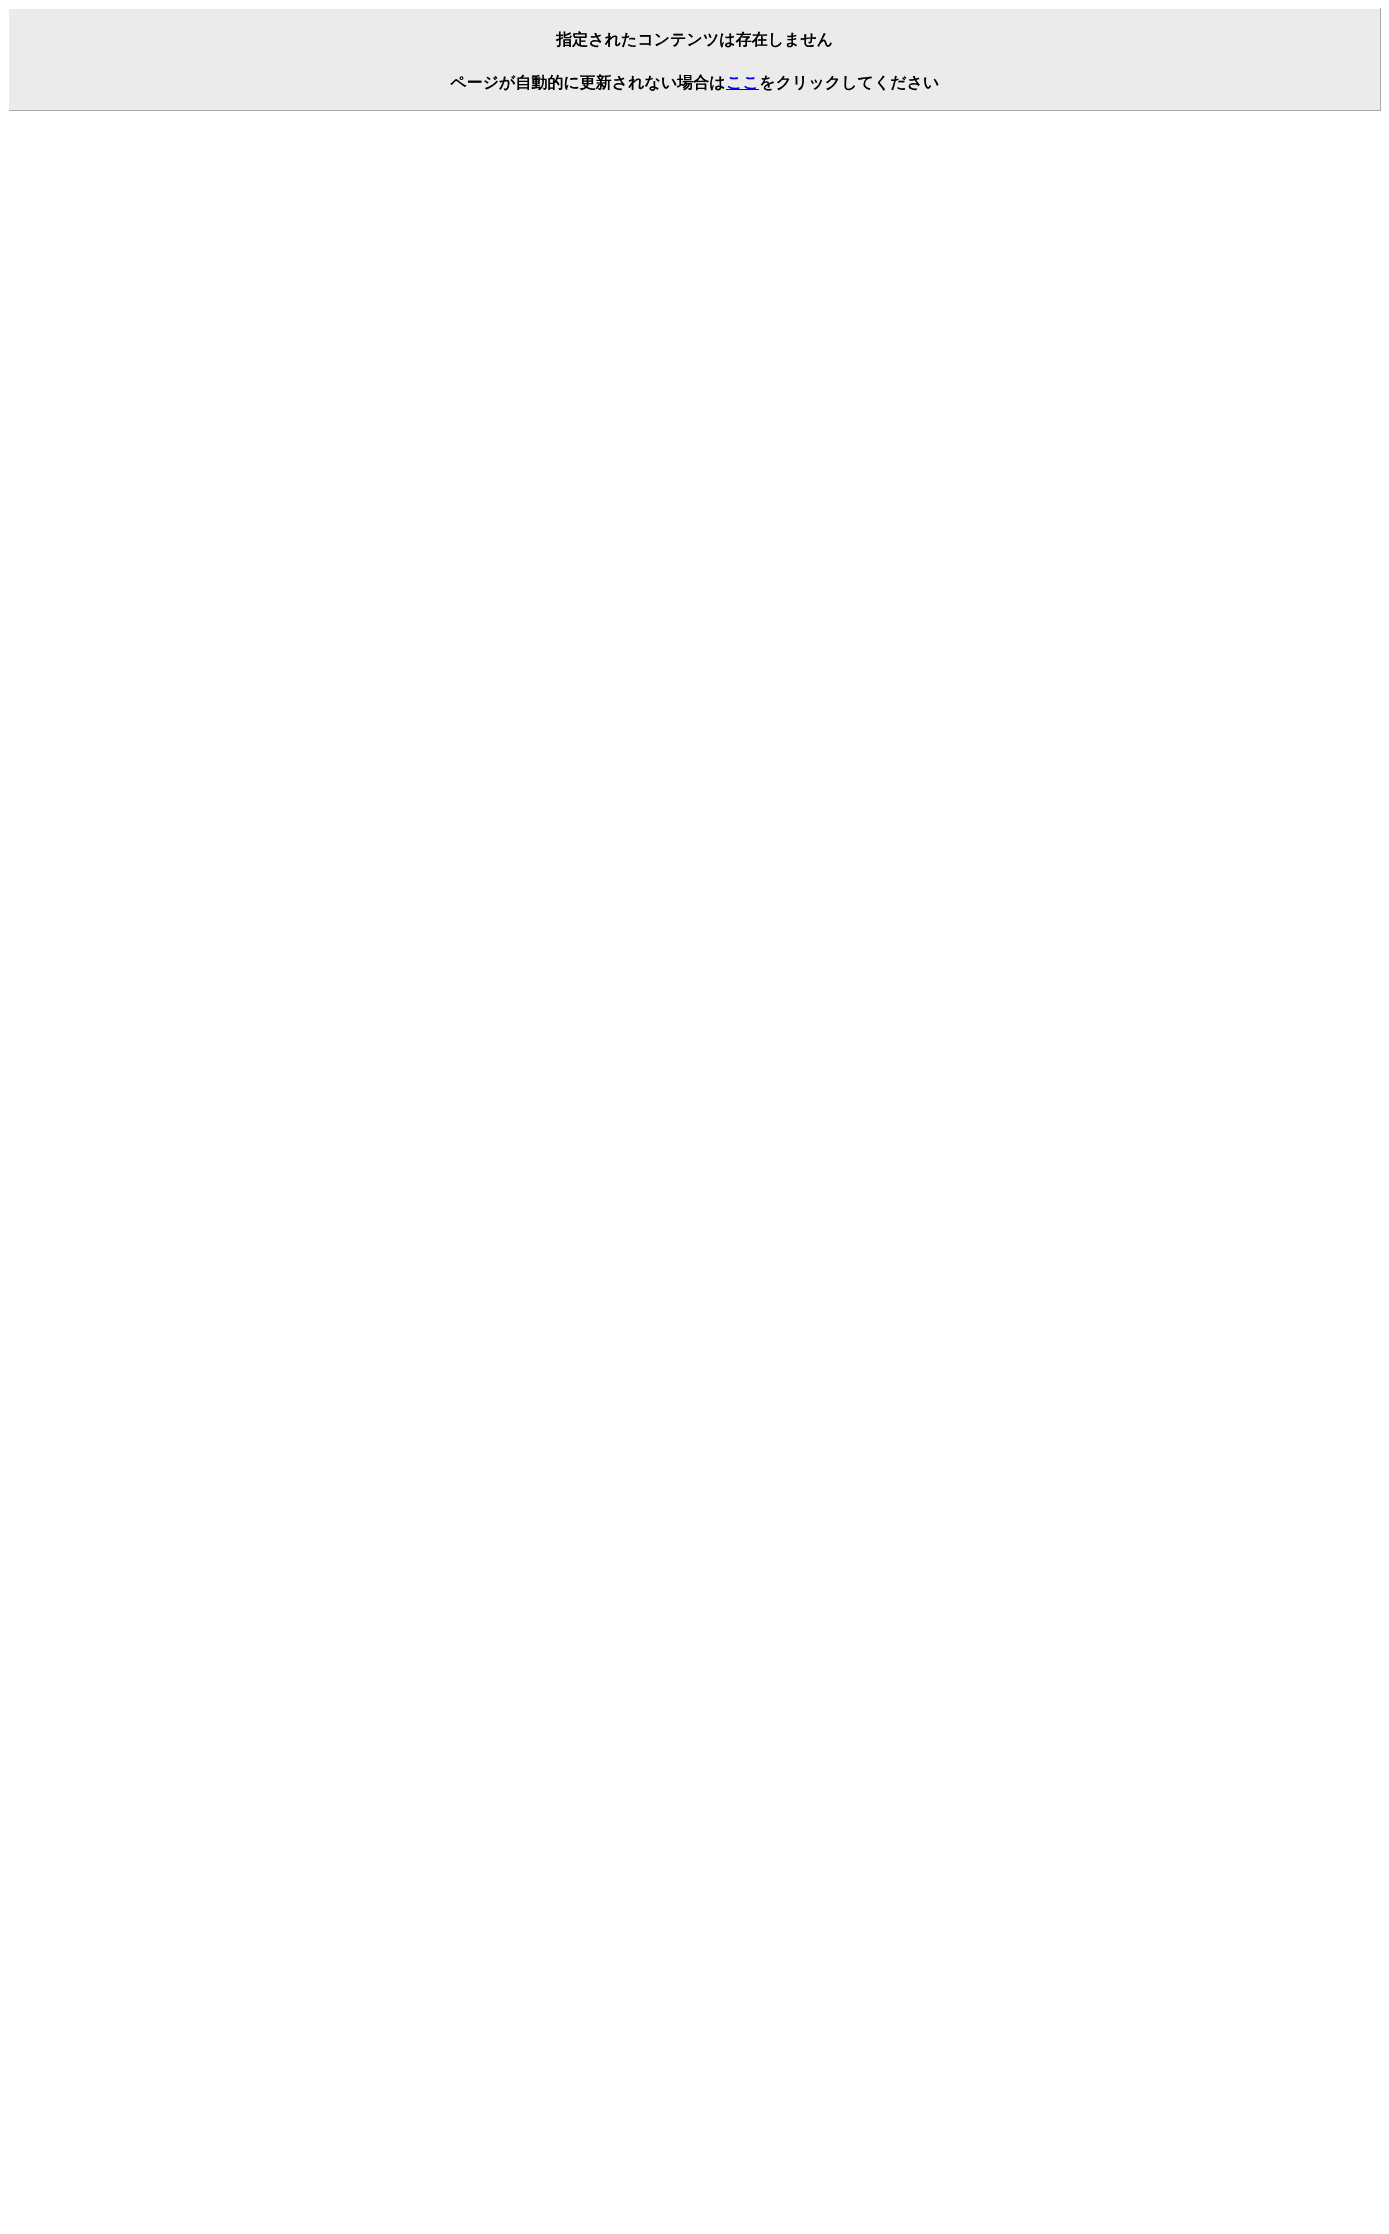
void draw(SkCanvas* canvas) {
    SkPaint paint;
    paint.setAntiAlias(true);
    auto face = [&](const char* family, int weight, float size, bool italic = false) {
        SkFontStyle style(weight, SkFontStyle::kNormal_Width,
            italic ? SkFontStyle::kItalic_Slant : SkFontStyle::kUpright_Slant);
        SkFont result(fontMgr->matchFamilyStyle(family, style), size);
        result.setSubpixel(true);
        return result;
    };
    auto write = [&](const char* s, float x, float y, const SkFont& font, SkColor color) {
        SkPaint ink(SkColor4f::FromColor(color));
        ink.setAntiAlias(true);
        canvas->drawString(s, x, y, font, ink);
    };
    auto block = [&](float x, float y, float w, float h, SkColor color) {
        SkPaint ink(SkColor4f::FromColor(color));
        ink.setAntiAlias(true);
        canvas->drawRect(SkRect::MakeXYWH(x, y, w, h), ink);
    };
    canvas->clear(SK_ColorWHITE);
    block(9, 9, 1371, 101, SkColorSetRGB(235, 235, 235));
    block(1380, 8, 1, 103, SkColorSetRGB(170, 170, 170));
    block(8, 110, 1373, 1, SkColorSetRGB(170, 170, 170));
    block(8, 110, 1, 1, SK_ColorWHITE);
    auto kFont1 = face("WenQuanYi Zen Hei", 700, 16);
    write("指定されたコンテンツは存在しません", 556, 45, kFont1, SK_ColorBLACK);
    write("ページが自動的に更新されない場合は", 450, 88, kFont1, SK_ColorBLACK);
    block(726, 89, 33, 1, SkColorSetRGB(0, 0, 238));
    write("ここ", 726, 88, kFont1, SkColorSetRGB(0, 0, 238));
    write("をクリックしてください", 759, 88, kFont1, SK_ColorBLACK);
}
